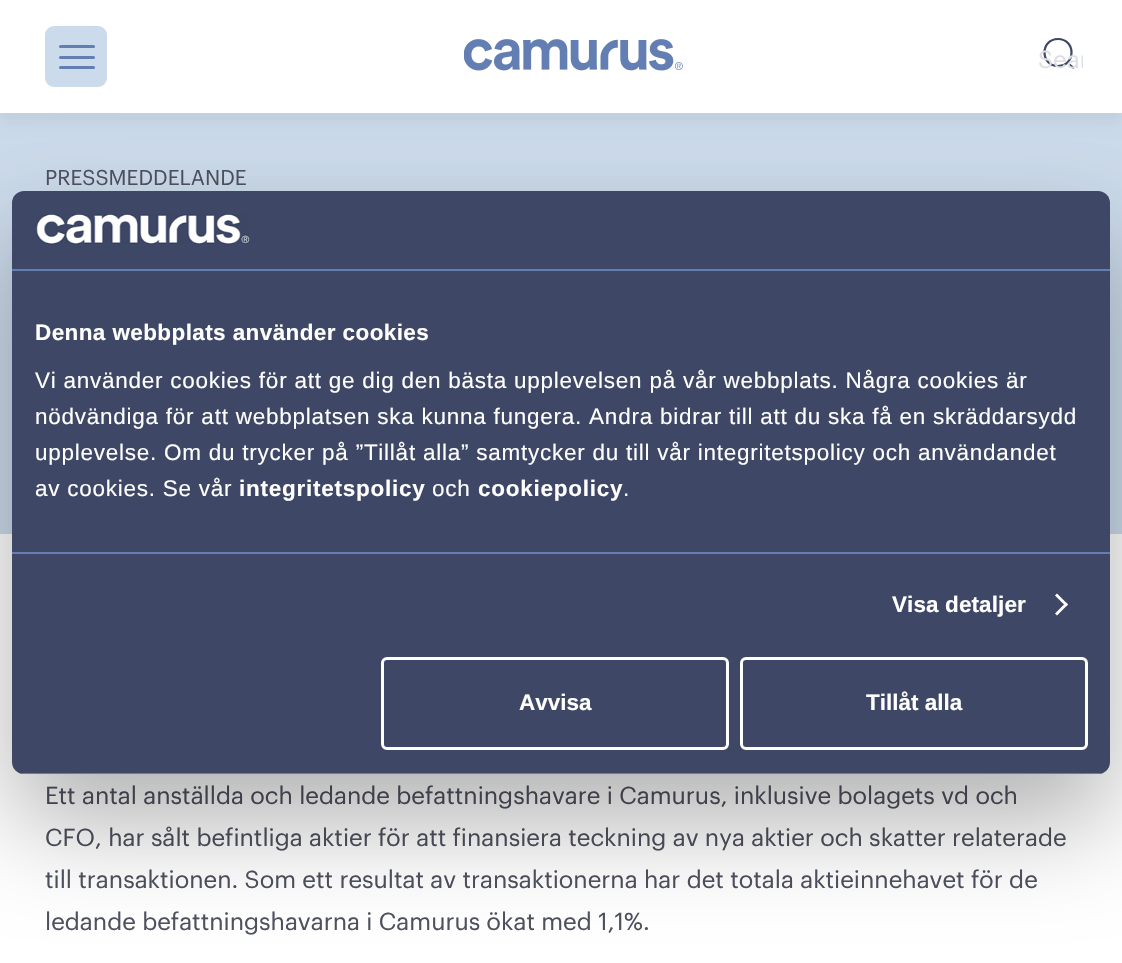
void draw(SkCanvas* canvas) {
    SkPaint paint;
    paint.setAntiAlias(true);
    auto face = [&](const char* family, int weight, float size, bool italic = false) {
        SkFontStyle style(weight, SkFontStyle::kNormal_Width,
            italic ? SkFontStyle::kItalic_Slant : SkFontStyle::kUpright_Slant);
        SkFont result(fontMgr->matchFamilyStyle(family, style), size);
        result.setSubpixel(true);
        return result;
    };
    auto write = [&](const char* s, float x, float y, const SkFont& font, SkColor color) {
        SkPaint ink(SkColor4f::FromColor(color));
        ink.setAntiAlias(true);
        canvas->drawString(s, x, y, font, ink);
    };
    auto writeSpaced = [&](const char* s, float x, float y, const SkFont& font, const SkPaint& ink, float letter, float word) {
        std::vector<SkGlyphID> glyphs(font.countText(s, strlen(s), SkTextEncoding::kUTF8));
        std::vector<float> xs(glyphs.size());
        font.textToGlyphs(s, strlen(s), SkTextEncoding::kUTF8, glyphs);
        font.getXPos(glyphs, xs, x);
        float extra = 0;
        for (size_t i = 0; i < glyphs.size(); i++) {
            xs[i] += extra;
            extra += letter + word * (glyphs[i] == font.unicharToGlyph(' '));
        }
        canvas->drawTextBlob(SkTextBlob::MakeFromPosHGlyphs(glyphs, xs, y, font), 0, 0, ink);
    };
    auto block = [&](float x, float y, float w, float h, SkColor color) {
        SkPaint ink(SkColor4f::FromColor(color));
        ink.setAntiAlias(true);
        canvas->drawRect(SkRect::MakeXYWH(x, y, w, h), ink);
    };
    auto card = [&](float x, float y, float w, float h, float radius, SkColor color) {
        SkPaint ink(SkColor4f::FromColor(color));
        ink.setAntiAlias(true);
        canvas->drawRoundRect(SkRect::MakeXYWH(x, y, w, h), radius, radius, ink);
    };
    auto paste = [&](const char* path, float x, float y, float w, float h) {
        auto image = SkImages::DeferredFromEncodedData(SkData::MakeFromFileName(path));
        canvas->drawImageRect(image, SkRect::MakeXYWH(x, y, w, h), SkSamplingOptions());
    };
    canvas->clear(SK_ColorWHITE);
    block(0, 113, 1122, 421, SkColorSetRGB(204, 219, 235));
    canvas->save();
    canvas->clipPath(SkPathBuilder(SkPathFillType::kEvenOdd).moveTo(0, 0).lineTo(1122, 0).lineTo(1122, 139).lineTo(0, 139).close().moveTo(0, 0).lineTo(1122, 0).lineTo(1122, 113).lineTo(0, 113).close().detach(), true);
    paint.setColor(SkColorSetARGB(13, 0, 0, 0));
    paint.setMaskFilter(SkMaskFilter::MakeBlur(kNormal_SkBlurStyle, 5));
    canvas->drawRect(SkRect::MakeXYWH(0, 11, 1122, 112), paint);
    paint.setMaskFilter(nullptr);
    canvas->restore();
    card(45, 26, 62, 61, 9, SkColorSetRGB(204, 219, 235));
    card(59, 45, 36, 3, 1.5f, SkColorSetRGB(98, 126, 179));
    card(59, 66, 36, 3, 1.5f, SkColorSetRGB(98, 126, 179));
    card(59, 56, 36, 3, 1.5f, SkColorSetRGB(98, 126, 179));
    paste("pic1.png", 464, 39, 219, 32);
    paint.setStyle(SkPaint::kStroke_Style);
    paint.setStrokeWidth(2.2f);
    paint.setStrokeCap(SkPaint::kRound_Cap);
    paint.setStrokeJoin(SkPaint::kRound_Join);
    paint.setColor(SkColorSetRGB(62, 71, 101));
    canvas->drawPath(SkPathBuilder().moveTo(1058, 66).cubicTo(1076, 66, 1076, 39, 1058, 39).cubicTo(1040, 39, 1040, 66, 1058, 66).close().moveTo(1073, 67.5f).lineTo(1070, 65).detach(), paint);
    canvas->save();
    canvas->clipRect(SkRect::MakeXYWH(1038, 44, 45, 28));
    auto kFont1 = face("Graphik", 400, 24);
    write("Sear", 1038, 68, kFont1, SkColorSetRGB(221, 223, 228));
    canvas->restore();
    auto kFont2 = face("Graphik", 400, 21);
    write("PRESSMEDDELANDE", 45, 185, kFont2, SkColorSetRGB(78, 81, 94));
    write("Ett antal anställda och ledande befattningshavare i Camurus, inklusive bolagets vd och", 45, 804, kFont1, SkColorSetRGB(78, 81, 94));
    write("CFO, har sålt befintliga aktier för att finansiera teckning av nya aktier och skatter relaterade", 45, 846, kFont1, SkColorSetRGB(78, 81, 94));
    write("till transaktionen. Som ett resultat av transaktionerna har det totala aktieinnehavet för de", 45, 888, kFont1, SkColorSetRGB(78, 81, 94));
    write("ledande befattningshavarna i Camurus ökat med 1,1%.", 45, 930, kFont1, SkColorSetRGB(78, 81, 94));
    paint.setStyle(SkPaint::kFill_Style);
    paint.setColor(SkColorSetARGB(77, 0, 0, 0));
    paint.setMaskFilter(SkMaskFilter::MakeBlur(kNormal_SkBlurStyle, 51));
    canvas->drawRoundRect(SkRect::MakeXYWH(12, 239, 1098, 583), 12, 12, paint);
    paint.setMaskFilter(nullptr);
    card(12, 191, 1098, 583, 12, SkColorSetRGB(62, 71, 101));
    block(12, 269, 1098, 2, SkColorSetRGB(98, 126, 179));
    paste("pic2.png", 36, 214, 214, 31);
    block(12, 552, 1098, 2, SkColorSetRGB(98, 126, 179));
    auto kFont3 = face("Liberation Sans", 700, 22.5f);
    paint.setColor(SK_ColorWHITE);
    writeSpaced("Denna webbplats använder cookies", 35, 340, kFont3, paint, 0.4f, 0);
    auto kFont4 = face("Liberation Sans", 400, 22.5f);
    writeSpaced("Vi använder cookies för att ge dig den bästa upplevelsen på vår webbplats. Några cookies är", 35, 388, kFont4, paint, 0.75f, 0);
    writeSpaced("nödvändiga för att webbplatsen ska kunna fungera. Andra bidrar till att du ska få en skräddarsydd", 35, 424, kFont4, paint, 0.75f, 0);
    writeSpaced("upplevelse. Om du trycker på ”Tillåt alla” samtycker du till vår integritetspolicy och användandet", 35, 460, kFont4, paint, 0.75f, 0);
    writeSpaced("av cookies. Se vår", 35, 496, kFont4, paint, 0.75f, 0);
    writeSpaced("integritetspolicy", 239, 496, kFont3, paint, 0.75f, 0);
    writeSpaced("och", 432, 496, kFont4, paint, 0.75f, 0);
    writeSpaced("cookiepolicy", 478, 496, kFont3, paint, 0.75f, 0);
    writeSpaced(".", 623, 496, kFont4, paint, 0.75f, 0);
    writeSpaced("Visa detaljer", 892, 612, kFont3, paint, 0.1f, 0);
    canvas->drawPath(SkPathBuilder().moveTo(1057, 593.5f).lineTo(1068, 604.5f).lineTo(1066, 606.5f).lineTo(1055, 595.5f).close().detach(), paint);
    canvas->drawPath(SkPathBuilder().moveTo(1066, 602.5f).lineTo(1068, 604.5f).lineTo(1057, 615.5f).lineTo(1055, 613.5f).close().detach(), paint);
    canvas->save();
    canvas->clipPath(SkPathBuilder().moveTo(24, 191).lineTo(1098, 191).cubicTo(1104.5f, 191, 1110, 196.5f, 1110, 203).lineTo(1110, 762).cubicTo(1110, 768.5f, 1104.5f, 774, 1098, 774).lineTo(24, 774).cubicTo(17.5f, 774, 12, 768.5f, 12, 762).lineTo(12, 203).cubicTo(12, 196.5f, 17.5f, 191, 24, 191).close().detach(), true);
    block(12, 773, 1098, 1, SkColorSetRGB(98, 126, 179));
    canvas->restore();
    paint.setStyle(SkPaint::kStroke_Style);
    paint.setStrokeWidth(3);
    paint.setStrokeCap(SkPaint::kButt_Cap);
    paint.setStrokeJoin(SkPaint::kMiter_Join);
    canvas->drawRoundRect(SkRect::MakeXYWH(382.5f, 658.5f, 345, 90), 4.5f, 4.5f, paint);
    write("Avvisa", 519, 710, kFont3, SK_ColorWHITE);
    canvas->drawRoundRect(SkRect::MakeXYWH(741.5f, 658.5f, 345, 90), 4.5f, 4.5f, paint);
    write("Tillåt alla", 866, 710, kFont3, SK_ColorWHITE);
}
